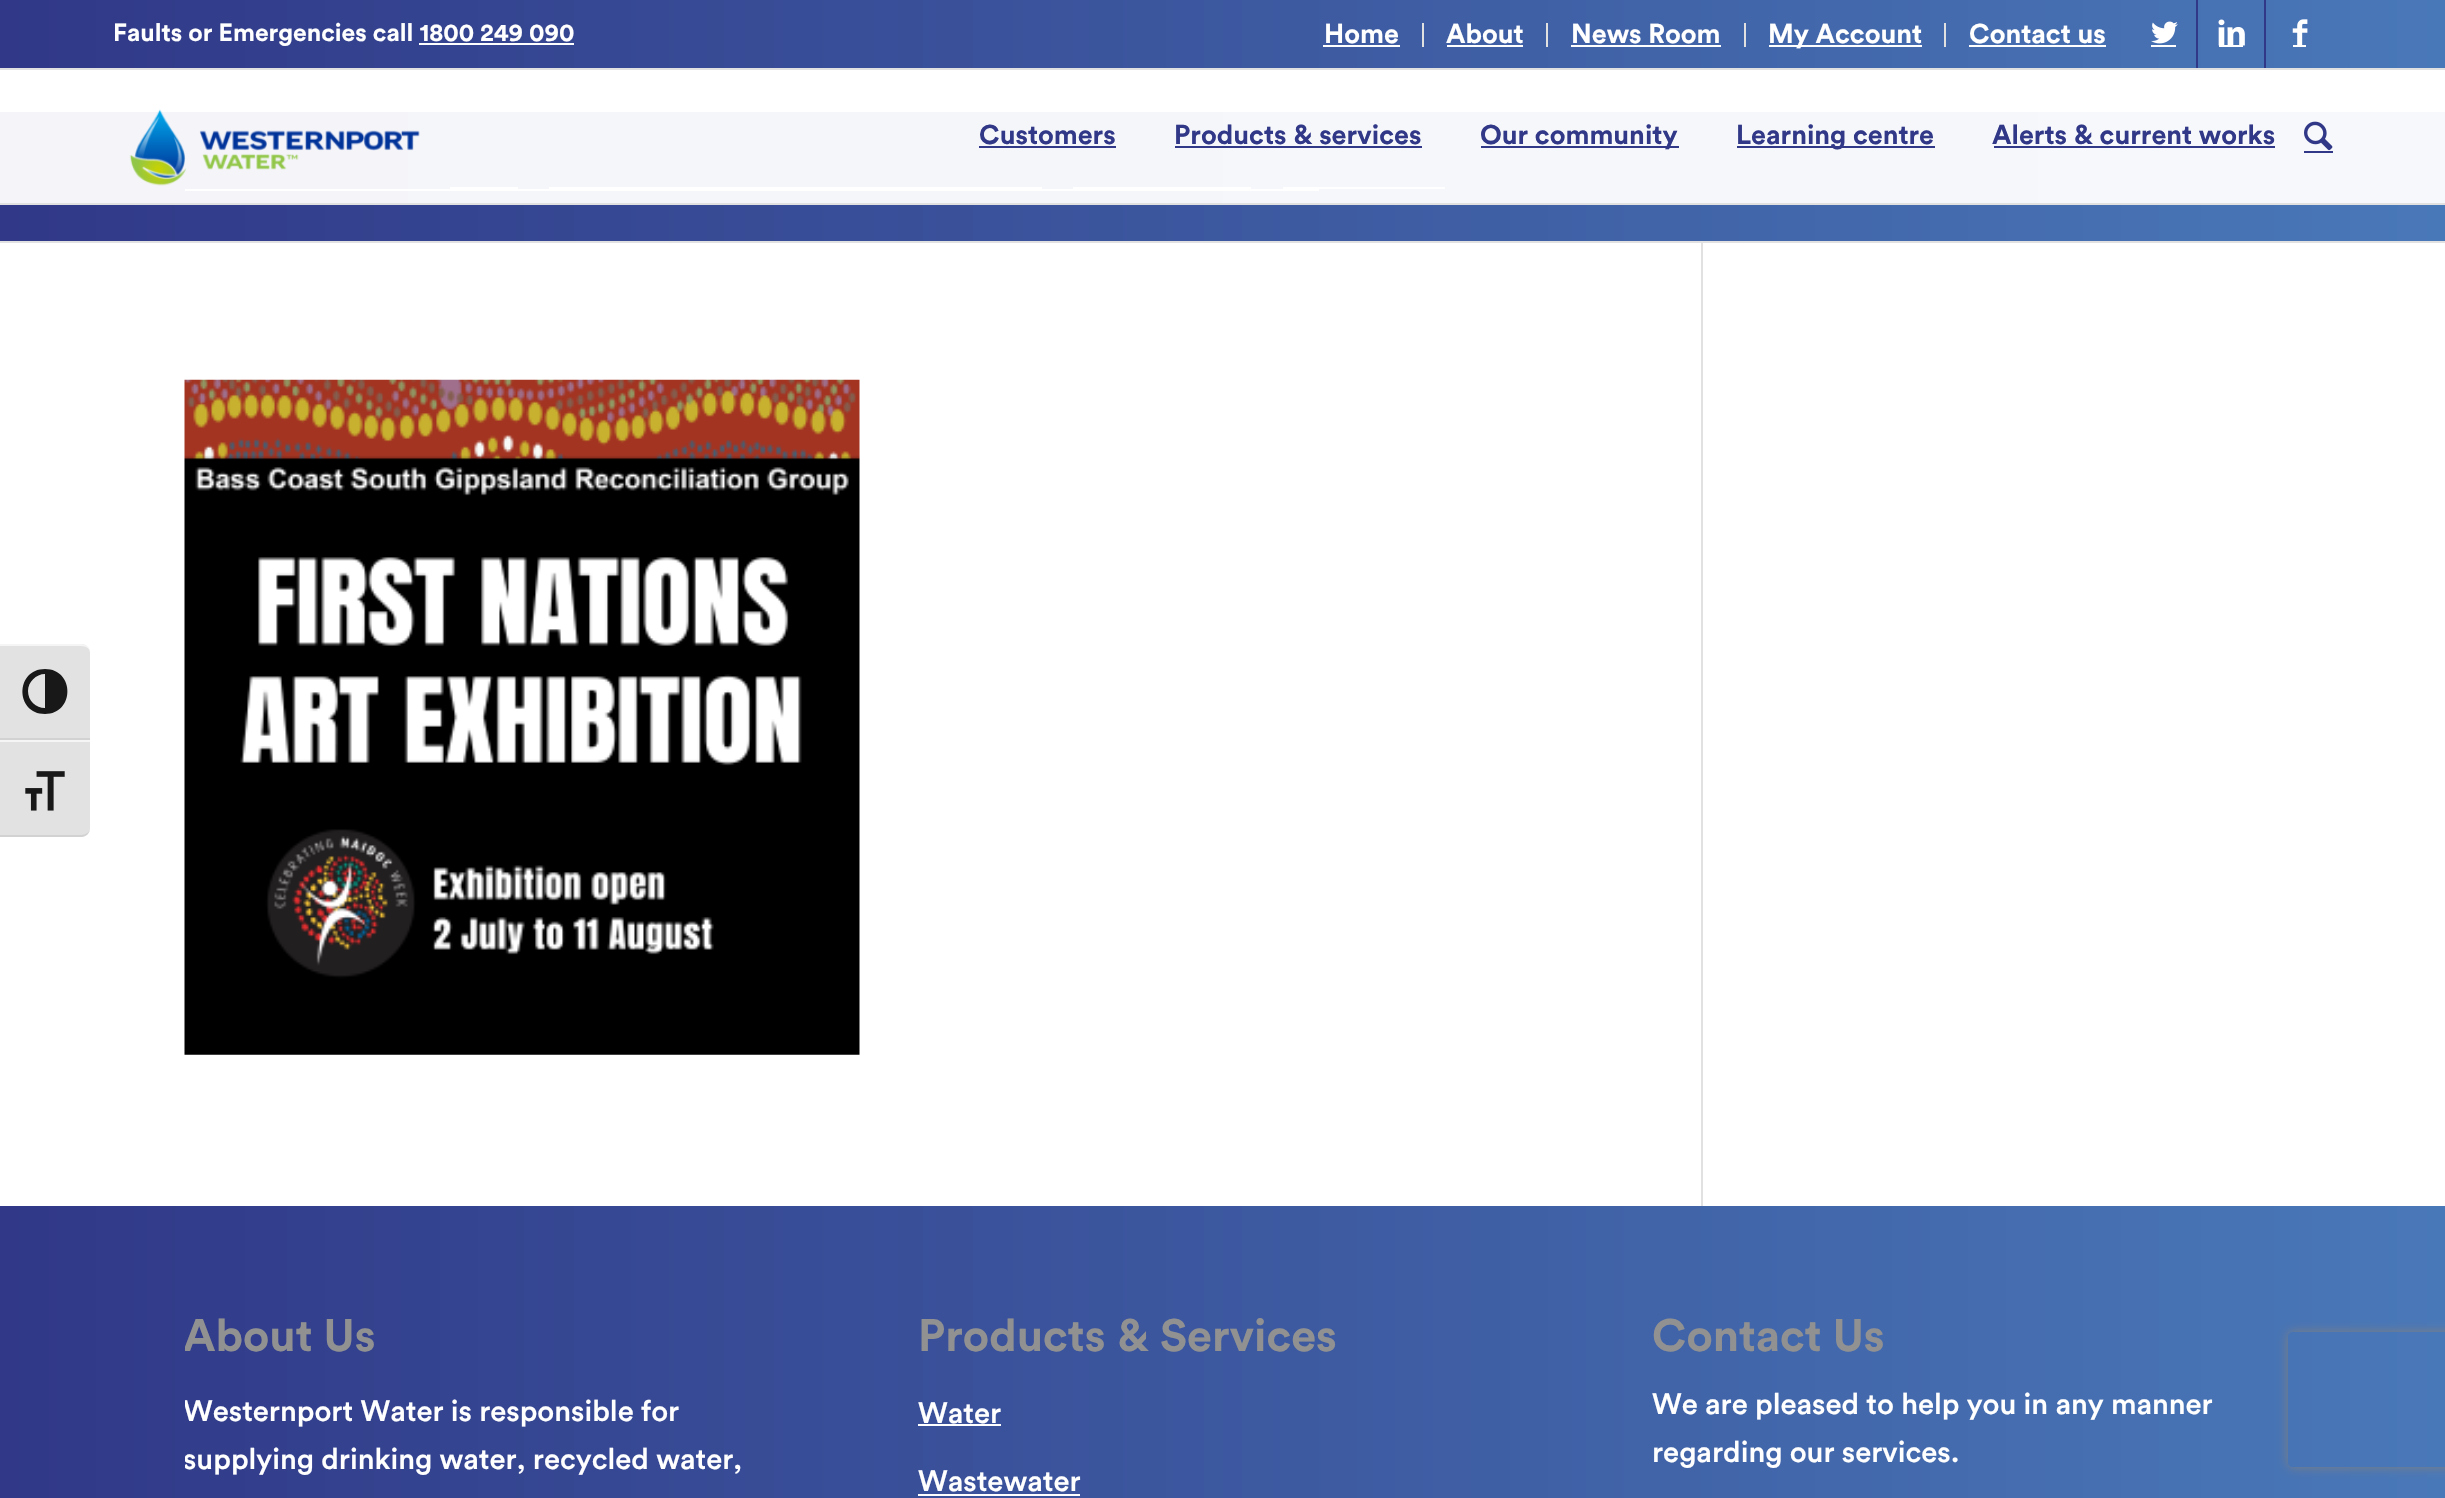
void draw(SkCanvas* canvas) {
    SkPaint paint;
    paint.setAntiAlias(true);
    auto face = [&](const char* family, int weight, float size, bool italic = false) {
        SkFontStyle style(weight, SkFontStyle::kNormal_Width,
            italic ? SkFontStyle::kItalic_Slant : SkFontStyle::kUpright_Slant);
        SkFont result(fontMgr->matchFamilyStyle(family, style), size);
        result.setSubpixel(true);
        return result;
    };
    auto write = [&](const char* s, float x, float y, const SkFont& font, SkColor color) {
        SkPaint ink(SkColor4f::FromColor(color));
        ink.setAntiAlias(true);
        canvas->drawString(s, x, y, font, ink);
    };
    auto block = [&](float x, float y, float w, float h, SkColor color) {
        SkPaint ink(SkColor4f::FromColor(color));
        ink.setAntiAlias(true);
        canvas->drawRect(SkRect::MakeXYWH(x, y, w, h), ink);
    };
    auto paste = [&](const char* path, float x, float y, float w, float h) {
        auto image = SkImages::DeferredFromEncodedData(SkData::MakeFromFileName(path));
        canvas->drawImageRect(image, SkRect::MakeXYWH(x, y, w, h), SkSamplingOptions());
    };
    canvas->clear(SK_ColorWHITE);
    paint.setColor(SkColorSetRGB(226, 226, 226));
    canvas->drawPath(SkPathBuilder().moveTo(0, 644).lineTo(81, 644).cubicTo(86, 644, 90, 648, 90, 653).lineTo(90, 740).lineTo(0, 740).close().detach(), paint);
    paint.setColor(SkColorSetRGB(245, 245, 245));
    canvas->drawPath(SkPathBuilder().moveTo(0, 646).lineTo(81, 646).cubicTo(86, 646, 90, 649, 90, 652).cubicTo(90, 648, 86, 644, 81, 644).lineTo(0, 644).close().detach(), paint);
    block(0, 738, 90, 2, SkColorSetRGB(210, 210, 210));
    paint.setColor(SkColorSetRGB(24, 24, 24));
    canvas->drawPath(SkPathBuilder().moveTo(45, 669).cubicTo(15, 669, 15, 714, 45, 714).cubicTo(75, 714, 75, 669, 45, 669).close().moveTo(28, 691).cubicTo(28, 682, 36, 674, 45, 674).lineTo(45, 708).cubicTo(36, 708, 28, 701, 28, 691).close().detach(), paint);
    paint.setColor(SkColorSetRGB(226, 226, 226));
    canvas->drawPath(SkPathBuilder().moveTo(0, 740).lineTo(90, 740).lineTo(90, 828).cubicTo(90, 833, 86, 837, 81, 837).lineTo(0, 837).close().detach(), paint);
    block(0, 740, 90, 2, SkColorSetRGB(245, 245, 245));
    paint.setColor(SkColorSetRGB(210, 210, 210));
    canvas->drawPath(SkPathBuilder().moveTo(0, 835).lineTo(0, 837).lineTo(81, 837).cubicTo(86, 837, 90, 833, 90, 828).cubicTo(90, 832, 86, 835, 81, 835).close().detach(), paint);
    paste("pic1.png", 25, 771, 40, 40);
    {
        const SkColor colors[] = {SkColorSetRGB(48, 56, 135), SkColorSetRGB(73, 120, 184)};
        const float stops[] = {0, 1};
        const SkPoint ends[] = {{0, 34}, {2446, 34}};
        paint.setShader(SkGradientShader::MakeLinear(ends, colors, stops, 2, SkTileMode::kClamp));
        paint.setAlpha(255);
    }
    canvas->drawRect(SkRect::MakeXYWH(0, 0, 2445, 68), paint);
    block(0, 68, 2445, 2, SkColorSetRGB(225, 225, 225));
    auto kFont1 = face("Circular", 700, 24.75f);
    write("Faults or Emergencies call 1800 249 090", 113, 41, kFont1, SK_ColorWHITE);
    block(419, 43, 155, 2, SK_ColorWHITE);
    block(1422, 23, 2, 24, SkColorSetRGB(225, 225, 225));
    auto kFont2 = face("Circular", 700, 27);
    write("Home", 1324, 43, kFont2, SK_ColorWHITE);
    block(1323, 45, 77, 2, SK_ColorWHITE);
    block(1546, 23, 2, 24, SkColorSetRGB(225, 225, 225));
    write("About", 1446, 43, kFont2, SK_ColorWHITE);
    block(1447, 45, 76, 2, SK_ColorWHITE);
    block(1744, 23, 2, 24, SkColorSetRGB(225, 225, 225));
    write("News Room", 1571, 43, kFont2, SK_ColorWHITE);
    block(1571, 45, 150, 2, SK_ColorWHITE);
    block(1944, 23, 2, 24, SkColorSetRGB(225, 225, 225));
    block(1769, 45, 153, 2, SK_ColorWHITE);
    write("My Account", 1768, 43, kFont2, SK_ColorWHITE);
    write("Contact us", 1969, 43, kFont2, SK_ColorWHITE);
    block(1969, 45, 137, 2, SK_ColorWHITE);
    block(2196, 0, 2, 68, SkColorSetRGB(48, 56, 135));
    paste("pic2.png", 2151, 21, 27, 23);
    block(2151, 45, 25, 2, SK_ColorWHITE);
    block(2264, 0, 2, 68, SkColorSetRGB(48, 56, 135));
    block(2219, 45, 24, 2, SK_ColorWHITE);
    paste("pic3.png", 2218, 19, 27, 27);
    paste("pic4.png", 2292, 19, 16, 26);
    block(2293, 45, 13, 2, SK_ColorWHITE);
    block(0, 203, 2445, 2, SkColorSetRGB(225, 225, 225));
    {
        const SkColor colors[] = {SkColorSetRGB(245, 245, 249), SkColorSetRGB(246, 248, 251)};
        const float stops[] = {0, 1};
        const SkPoint ends[] = {{0, 177}, {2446, 177}};
        paint.setShader(SkGradientShader::MakeLinear(ends, colors, stops, 2, SkTileMode::kClamp));
        paint.setAlpha(255);
    }
    canvas->drawRect(SkRect::MakeXYWH(0, 112, 2445, 91), paint);
    paste("pic5.png", 129, 109, 291, 77);
    write("Customers", 979, 144, kFont2, SkColorSetRGB(48, 56, 135));
    block(979, 146, 137, 2, SkColorSetRGB(48, 56, 135));
    write("Products & services", 1174, 144, kFont2, SkColorSetRGB(48, 56, 135));
    block(1175, 146, 247, 2, SkColorSetRGB(48, 56, 135));
    block(1481, 146, 198, 2, SkColorSetRGB(48, 56, 135));
    write("Our community", 1480, 144, kFont2, SkColorSetRGB(48, 56, 135));
    block(1737, 146, 198, 2, SkColorSetRGB(48, 56, 135));
    write("Learning centre", 1736, 144, kFont2, SkColorSetRGB(48, 56, 135));
    write("Alerts & current works", 1992, 144, kFont2, SkColorSetRGB(48, 56, 135));
    block(1994, 146, 281, 2, SkColorSetRGB(48, 56, 135));
    paste("pic6.png", 2304, 121, 29, 30);
    block(2304, 151, 29, 2, SkColorSetRGB(48, 56, 135));
    {
        const SkColor colors[] = {SkColorSetRGB(48, 56, 135), SkColorSetRGB(73, 120, 184)};
        const float stops[] = {0, 1};
        const SkPoint ends[] = {{0, 177}, {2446, 177}};
        paint.setShader(SkGradientShader::MakeLinear(ends, colors, stops, 2, SkTileMode::kClamp));
        paint.setAlpha(255);
    }
    canvas->drawRect(SkRect::MakeXYWH(0, 205, 2445, 36), paint);
    block(450, 187, 68, 2, SK_ColorWHITE);
    block(549, 187, 493, 2, SK_ColorWHITE);
    block(1073, 187, 178, 2, SK_ColorWHITE);
    block(1283, 187, 162, 2, SK_ColorWHITE);
    block(185, 189, 1134, 2, SK_ColorWHITE);
    block(0, 241, 2445, 2, SkColorSetRGB(225, 225, 225));
    block(1701, 243, 2, 963, SkColorSetRGB(225, 225, 225));
    paste("pic7.png", 184, 379, 676, 676);
    {
        const SkColor colors[] = {SkColorSetRGB(48, 56, 135), SkColorSetRGB(73, 120, 184)};
        const float stops[] = {0, 1};
        const SkPoint ends[] = {{0, 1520}, {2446, 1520}};
        paint.setShader(SkGradientShader::MakeLinear(ends, colors, stops, 2, SkTileMode::kClamp));
        paint.setAlpha(255);
    }
    canvas->drawRect(SkRect::MakeXYWH(0, 1206, 2445, 292), paint);
    canvas->save();
    canvas->clipRect(SkRect::MakeXYWH(185, 1274, 609, 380));
    auto kFont3 = face("Circular", 700, 45);
    write("About Us", 183, 1351, kFont3, SkColorSetRGB(145, 145, 145));
    auto kFont4 = face("Circular", 500, 29.25f);
    write("Westernport Water is responsible for", 183, 1421, kFont4, SK_ColorWHITE);
    write("supplying drinking water, recycled water,", 183, 1469, kFont4, SK_ColorWHITE);
    canvas->restore();
    write("Products & Services", 918, 1351, kFont3, SkColorSetRGB(145, 145, 145));
    write("Water", 918, 1423, kFont4, SK_ColorWHITE);
    block(918, 1424, 83, 2, SK_ColorWHITE);
    write("Wastewater", 918, 1491, kFont4, SK_ColorWHITE);
    block(918, 1494, 162, 2, SK_ColorWHITE);
    write("Contact Us", 1652, 1351, kFont3, SkColorSetRGB(145, 145, 145));
    write("We are pleased to help you in any manner", 1652, 1414, kFont4, SK_ColorWHITE);
    write("regarding our services.", 1652, 1462, kFont4, SK_ColorWHITE);
    canvas->save();
    canvas->clipPath(SkPathBuilder(SkPathFillType::kEvenOdd).moveTo(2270, 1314).lineTo(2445, 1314).lineTo(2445, 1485).lineTo(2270, 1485).close().moveTo(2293, 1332).lineTo(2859, 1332).cubicTo(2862, 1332, 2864, 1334, 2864, 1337).lineTo(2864, 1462).cubicTo(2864, 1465, 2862, 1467, 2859, 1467).lineTo(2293, 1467).cubicTo(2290, 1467, 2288, 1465, 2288, 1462).lineTo(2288, 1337).cubicTo(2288, 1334, 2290, 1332, 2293, 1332).close().detach(), true);
    paint.setShader(nullptr);
    paint.setColor(SkColorSetRGB(128, 128, 128));
    paint.setMaskFilter(SkMaskFilter::MakeBlur(kNormal_SkBlurStyle, 5.5f));
    canvas->drawRoundRect(SkRect::MakeXYWH(2288, 1332, 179, 135), 5, 5, paint);
    paint.setMaskFilter(nullptr);
    canvas->restore();
}
